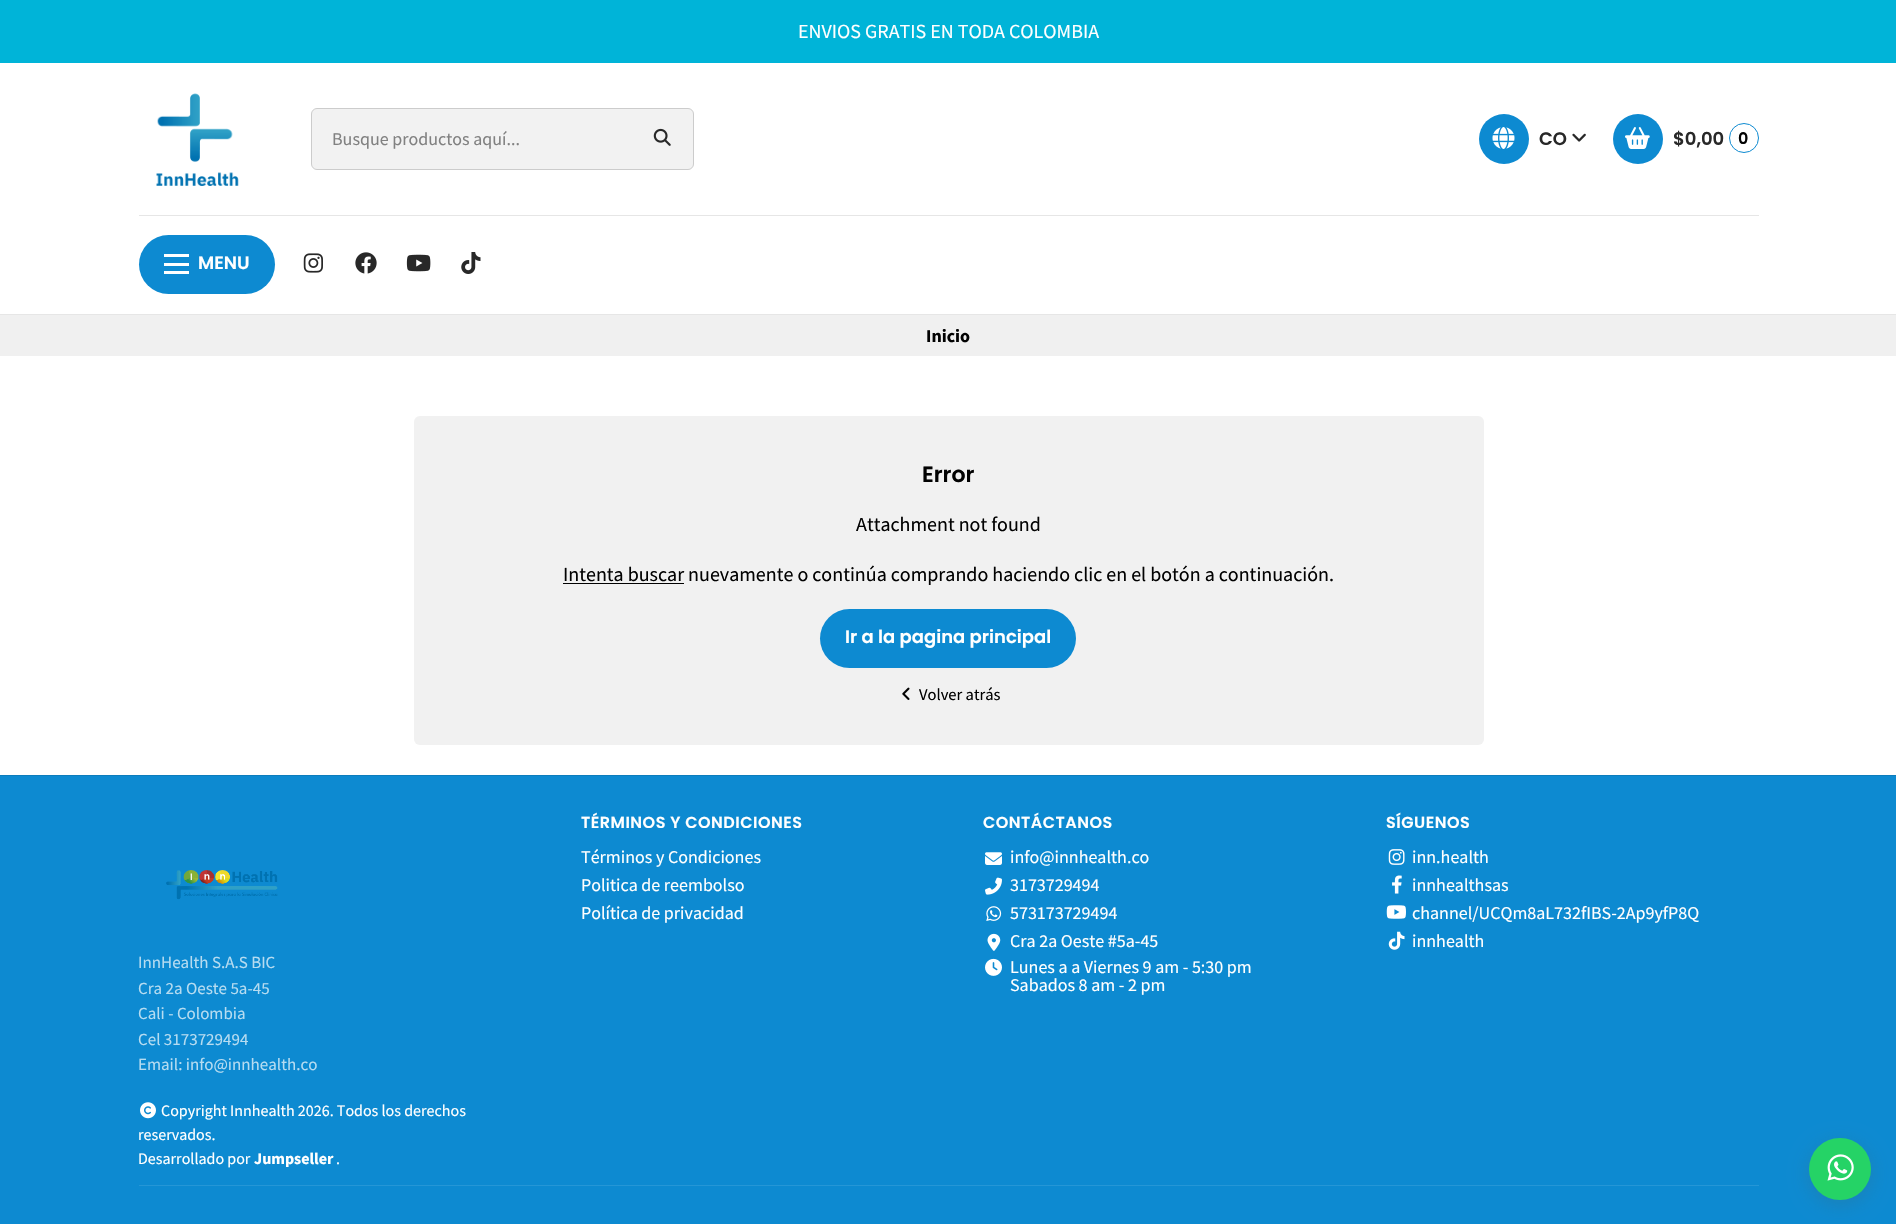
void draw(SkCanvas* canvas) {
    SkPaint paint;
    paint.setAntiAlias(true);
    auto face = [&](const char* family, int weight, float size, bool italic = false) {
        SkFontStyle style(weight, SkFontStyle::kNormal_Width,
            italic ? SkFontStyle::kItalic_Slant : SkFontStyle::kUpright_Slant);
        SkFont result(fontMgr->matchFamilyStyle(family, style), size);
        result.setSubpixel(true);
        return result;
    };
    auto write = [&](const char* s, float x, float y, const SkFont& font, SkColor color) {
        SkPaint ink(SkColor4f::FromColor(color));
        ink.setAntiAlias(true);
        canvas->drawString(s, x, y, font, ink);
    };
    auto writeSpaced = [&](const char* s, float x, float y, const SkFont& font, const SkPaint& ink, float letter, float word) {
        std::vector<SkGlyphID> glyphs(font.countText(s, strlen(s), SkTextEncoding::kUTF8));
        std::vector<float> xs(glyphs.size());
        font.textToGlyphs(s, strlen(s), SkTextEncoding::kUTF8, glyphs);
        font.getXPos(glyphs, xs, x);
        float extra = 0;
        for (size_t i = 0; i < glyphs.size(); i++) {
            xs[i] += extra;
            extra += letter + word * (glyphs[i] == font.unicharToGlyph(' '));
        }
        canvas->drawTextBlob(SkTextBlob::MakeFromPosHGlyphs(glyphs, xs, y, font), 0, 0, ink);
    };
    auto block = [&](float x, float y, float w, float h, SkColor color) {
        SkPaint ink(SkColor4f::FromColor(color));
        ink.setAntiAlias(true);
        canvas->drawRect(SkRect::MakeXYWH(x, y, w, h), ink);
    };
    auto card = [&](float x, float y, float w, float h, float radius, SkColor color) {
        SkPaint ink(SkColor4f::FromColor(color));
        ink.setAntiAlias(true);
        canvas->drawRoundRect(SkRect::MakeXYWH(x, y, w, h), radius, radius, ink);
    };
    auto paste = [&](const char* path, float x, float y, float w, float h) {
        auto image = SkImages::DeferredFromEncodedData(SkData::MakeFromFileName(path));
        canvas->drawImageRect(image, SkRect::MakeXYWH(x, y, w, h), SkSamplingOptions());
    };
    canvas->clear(SK_ColorWHITE);
    block(0, 314, 1896, 1, SkColorSetRGB(230, 230, 230));
    block(0, 0, 1896, 63, SkColorSetRGB(0, 180, 216));
    auto kFont1 = face("Source Sans Pro", 400, 20);
    write("ENVIOS GRATIS EN TODA COLOMBIA", 798, 38, kFont1, SK_ColorWHITE);
    paste("pic1.png", 156, 93, 83, 93);
    paint.setColor(SkColorSetRGB(242, 242, 242));
    canvas->drawRoundRect(SkRect::MakeXYWH(311.5f, 108.5f, 382, 61), 5.5f, 5.5f, paint);
    paint.setStyle(SkPaint::kStroke_Style);
    paint.setStrokeWidth(1);
    paint.setColor(SkColorSetRGB(204, 204, 204));
    canvas->drawRoundRect(SkRect::MakeXYWH(311.5f, 108.5f, 382, 61), 5.5f, 5.5f, paint);
    auto kFont2 = face("Source Sans Pro", 400, 18);
    write("Busque productos aquí...", 332, 145, kFont2, SkColorSetRGB(129, 129, 129));
    paste("pic2.png", 653, 128, 18, 18);
    paint.setStyle(SkPaint::kFill_Style);
    paint.setColor(SkColorSetRGB(13, 138, 209));
    canvas->drawCircle(1504, 139, 25, paint);
    paste("pic3.png", 1492, 127, 23, 22);
    auto kFont3 = face("Poppins", 600, 18);
    write("CO", 1539, 145, kFont3, SkColorSetRGB(40, 40, 40));
    paste("pic4.png", 1572, 133, 14, 9);
    canvas->drawCircle(1638, 139, 25, paint);
    paste("pic5.png", 1625, 127, 25, 22);
    write("$0,00", 1673, 145, kFont3, SkColorSetRGB(40, 40, 40));
    paint.setStyle(SkPaint::kStroke_Style);
    canvas->drawCircle(1744, 138, 14.5f, paint);
    auto kFont4 = face("Poppins", 600, 16);
    write("0", 1738, 144, kFont4, SkColorSetRGB(2, 2, 2));
    block(139, 215, 1620, 1, SkColorSetRGB(230, 230, 230));
    card(139, 235, 136, 59, 29.5f, SkColorSetRGB(13, 138, 209));
    block(164, 254, 25, 3, SK_ColorWHITE);
    block(164, 263, 25, 3, SK_ColorWHITE);
    block(164, 271, 25, 3, SK_ColorWHITE);
    write("MENU", 198, 269, kFont3, SK_ColorWHITE);
    paste("pic6.png", 303, 253, 20, 20);
    paste("pic7.png", 355, 252, 22, 22);
    paste("pic8.png", 406, 254, 25, 18);
    paste("pic9.png", 461, 252, 20, 22);
    block(0, 315, 1896, 41, SkColorSetRGB(240, 240, 240));
    auto kFont5 = face("Source Sans Pro", 700, 18);
    write("Inicio", 926, 342, kFont5, SkColorSetRGB(2, 2, 2));
    card(414, 416, 1070, 329, 6, SkColorSetRGB(241, 241, 241));
    auto kFont6 = face("Poppins", 600, 22);
    write("Error", 922, 482, kFont6, SkColorSetRGB(2, 2, 2));
    write("Attachment not found", 856, 531, kFont1, SkColorSetRGB(2, 2, 2));
    block(563, 583, 121, 1, SkColorSetRGB(2, 2, 2));
    write("Intenta buscar nuevamente o continúa comprando haciendo clic en el botón a continuación.", 563, 581, kFont1, SkColorSetRGB(2, 2, 2));
    card(820, 609, 256, 59, 29.5f, SkColorSetRGB(13, 138, 209));
    write("Ir a la pagina principal", 845, 643, kFont3, SK_ColorWHITE);
    paste("pic10.png", 902, 687, 8, 13);
    auto kFont7 = face("Source Sans Pro", 400, 16.5f);
    write("Volver atrás", 919, 700, kFont7, SkColorSetRGB(2, 2, 2));
    block(0, 776, 1896, 448, SkColorSetRGB(13, 138, 209));
    block(0, 775, 1896, 1, SkColorSetRGB(12, 124, 188));
    paint.setStyle(SkPaint::kFill_Style);
    paint.setColor(SK_ColorWHITE);
    writeSpaced("TÉRMINOS Y CONDICIONES", 581, 828, kFont4, paint, 0.5f, 0);
    write("Términos y Condiciones", 581, 863, kFont2, SK_ColorWHITE);
    write("Politica de reembolso", 581, 891, kFont2, SK_ColorWHITE);
    write("Política de privacidad", 581, 919, kFont2, SK_ColorWHITE);
    writeSpaced("CONTÁCTANOS", 983, 828, kFont4, paint, 0.5f, 0);
    paste("pic11.png", 985, 852, 17, 13);
    write("info@innhealth.co", 1010, 863, kFont2, SK_ColorWHITE);
    paste("pic12.png", 985, 877, 17, 18);
    write("3173729494", 1010, 891, kFont2, SK_ColorWHITE);
    paste("pic13.png", 986, 906, 16, 15);
    write("573173729494", 1010, 919, kFont2, SK_ColorWHITE);
    paste("pic14.png", 987, 933, 14, 18);
    write("Cra 2a Oeste #5a-45", 1010, 947, kFont2, SK_ColorWHITE);
    paste("pic15.png", 985, 958, 17, 18);
    write("Lunes a a Viernes 9 am - 5:30 pm", 1010, 973, kFont2, SK_ColorWHITE);
    write("Sabados 8 am - 2 pm", 1010, 991, kFont2, SK_ColorWHITE);
    writeSpaced("SÍGUENOS", 1386, 828, kFont4, paint, 0.5f, 0);
    paste("pic16.png", 1388, 849, 17, 16);
    write("inn.health", 1412, 863, kFont2, SK_ColorWHITE);
    paste("pic17.png", 1392, 875, 10, 19);
    write("innhealthsas", 1412, 891, kFont2, SK_ColorWHITE);
    paste("pic18.png", 1386, 905, 20, 14);
    write("channel/UCQm8aL732fIBS-2Ap9yfP8Q", 1412, 919, kFont2, SK_ColorWHITE);
    paste("pic19.png", 1388, 931, 17, 19);
    write("innhealth", 1412, 947, kFont2, SK_ColorWHITE);
    paste("pic20.png", 166, 870, 112, 30);
    auto kFont8 = face("Source Sans Pro", 400, 17);
    write("InnHealth S.A.S BIC", 138, 968, kFont8, SkColorSetRGB(182, 220, 241));
    write("Cra 2a Oeste 5a-45", 138, 994, kFont8, SkColorSetRGB(182, 220, 241));
    write("Cali - Colombia", 138, 1019, kFont8, SkColorSetRGB(182, 220, 241));
    write("Cel 3173729494", 138, 1045, kFont8, SkColorSetRGB(182, 220, 241));
    write("Email: info@innhealth.co", 138, 1070, kFont8, SkColorSetRGB(182, 220, 241));
    paste("pic21.png", 140, 1102, 16, 17);
    auto kFont9 = face("Source Sans Pro", 400, 16);
    write("Copyright Innhealth 2026. Todos los derechos", 161, 1116, kFont9, SK_ColorWHITE);
    write("reservados.", 138, 1140, kFont9, SK_ColorWHITE);
    write("Desarrollado por", 138, 1164, kFont9, SK_ColorWHITE);
    auto kFont10 = face("Source Sans Pro", 700, 16);
    write("Jumpseller", 254, 1164, kFont10, SK_ColorWHITE);
    write(".", 336, 1164, kFont9, SK_ColorWHITE);
    block(139, 1185, 1620, 1, SkColorSetRGB(37, 150, 214));
    paint.setColor(SkColorSetARGB(77, 61, 105, 122));
    paint.setMaskFilter(SkMaskFilter::MakeBlur(kNormal_SkBlurStyle, 9.5f));
    canvas->drawRoundRect(SkRect::MakeXYWH(1809, 1143, 62, 62), 31, 31, paint);
    paint.setMaskFilter(nullptr);
    paint.setColor(SkColorSetRGB(37, 211, 102));
    canvas->drawCircle(1840, 1169, 31, paint);
    paste("pic22.png", 1827, 1154, 27, 27);
}
